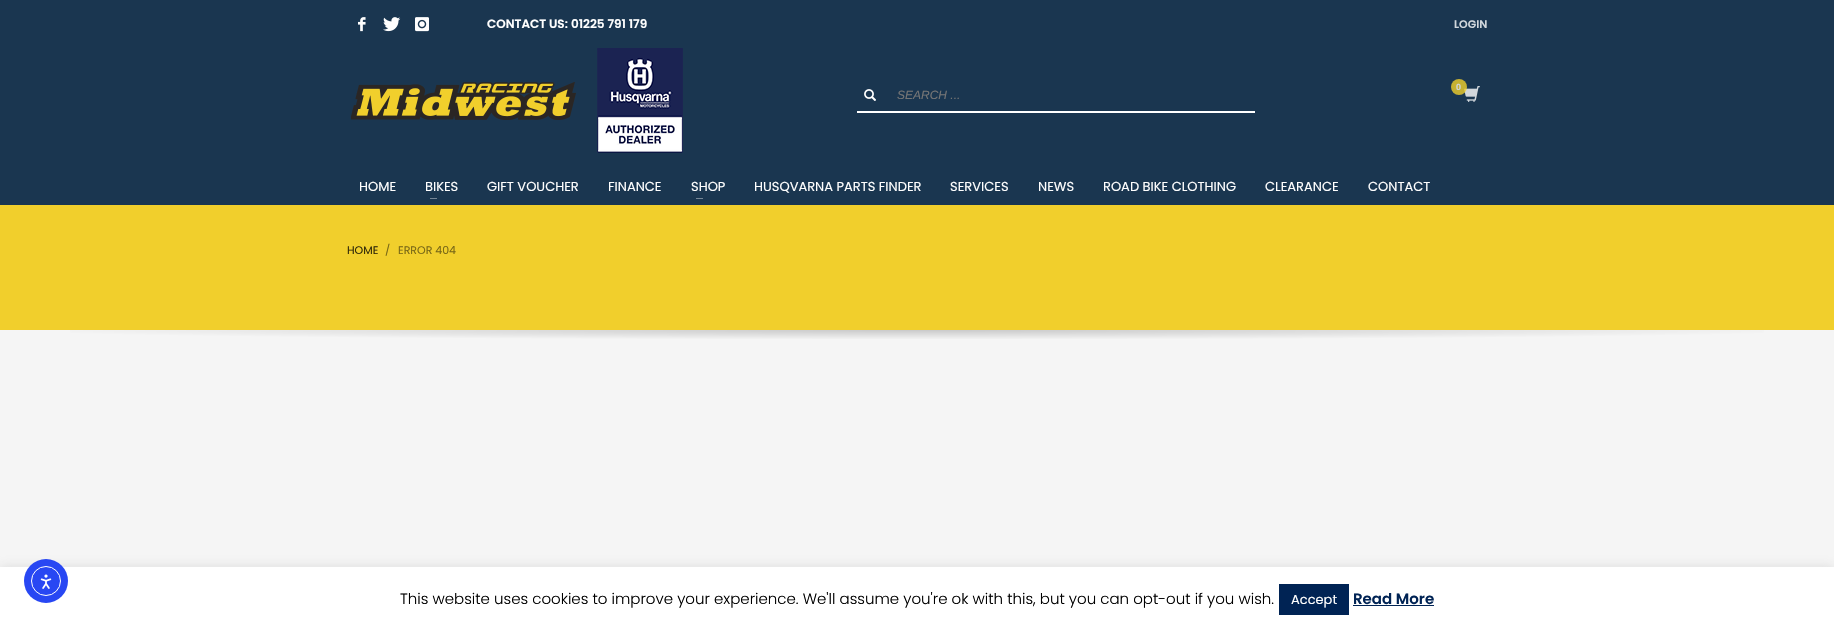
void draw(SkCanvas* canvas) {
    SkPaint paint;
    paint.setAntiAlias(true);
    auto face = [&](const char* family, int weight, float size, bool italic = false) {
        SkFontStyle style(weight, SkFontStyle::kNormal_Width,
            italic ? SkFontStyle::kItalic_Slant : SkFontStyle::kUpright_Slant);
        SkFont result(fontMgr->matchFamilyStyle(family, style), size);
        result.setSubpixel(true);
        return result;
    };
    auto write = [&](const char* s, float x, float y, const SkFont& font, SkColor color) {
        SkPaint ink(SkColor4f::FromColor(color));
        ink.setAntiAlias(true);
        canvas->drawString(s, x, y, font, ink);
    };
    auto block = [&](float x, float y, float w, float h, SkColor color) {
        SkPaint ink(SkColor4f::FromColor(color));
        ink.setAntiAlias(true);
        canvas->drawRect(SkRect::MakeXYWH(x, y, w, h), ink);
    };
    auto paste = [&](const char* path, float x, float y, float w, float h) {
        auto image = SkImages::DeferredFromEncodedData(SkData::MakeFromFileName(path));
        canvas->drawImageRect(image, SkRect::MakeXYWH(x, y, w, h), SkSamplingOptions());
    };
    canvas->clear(SkColorSetRGB(245, 245, 245));
    block(0, 0, 1834, 205, SkColorSetRGB(26, 54, 80));
    paste("pic1.png", 358, 17, 8, 15);
    paste("pic2.png", 383, 17, 18, 15);
    paste("pic3.png", 415, 17, 14, 15);
    auto kFont1 = face("Poppins", 600, 12);
    write("CONTACT US:", 487, 28, kFont1, SK_ColorWHITE);
    write("01225 791 179", 571, 28, kFont1, SK_ColorWHITE);
    auto kFont2 = face("Poppins", 600, 11);
    write("LOGIN", 1454, 28, kFont2, SkColorSetRGB(209, 215, 220));
    paste("pic4.png", 351, 48, 332, 105);
    paste("pic5.png", 1464, 86, 16, 16);
    paint.setColor(SkColorSetARGB(204, 241, 207, 44));
    canvas->drawCircle(1459, 87, 8, paint);
    auto kFont3 = face("Liberation Sans", 700, 9);
    write("0", 1456, 90, kFont3, SkColorSetRGB(209, 215, 220));
    paste("pic6.png", 864, 89, 12, 12);
    block(857, 111, 398, 2, SK_ColorWHITE);
    auto kFont4 = face("Liberation Sans", 400, 12, true);
    write("SEARCH ...", 897, 99, kFont4, SkColorSetRGB(117, 117, 117));
    auto kFont5 = face("Poppins", 400, 13);
    write("HOME", 359, 191, kFont5, SK_ColorWHITE);
    write("BIKES", 425, 191, kFont5, SK_ColorWHITE);
    block(430, 198, 7, 1, SkColorSetRGB(118, 134, 150));
    write("GIFT VOUCHER", 487, 191, kFont5, SK_ColorWHITE);
    write("FINANCE", 608, 191, kFont5, SK_ColorWHITE);
    write("SHOP", 691, 191, kFont5, SK_ColorWHITE);
    block(696, 198, 7, 1, SkColorSetRGB(118, 134, 150));
    write("HUSQVARNA PARTS FINDER", 754, 191, kFont5, SK_ColorWHITE);
    write("SERVICES", 950, 191, kFont5, SK_ColorWHITE);
    write("NEWS", 1038, 191, kFont5, SK_ColorWHITE);
    write("ROAD BIKE CLOTHING", 1103, 191, kFont5, SK_ColorWHITE);
    write("CLEARANCE", 1265, 191, kFont5, SK_ColorWHITE);
    write("CONTACT", 1368, 191, kFont5, SK_ColorWHITE);
    block(0, 205, 1834, 125, SkColorSetRGB(241, 207, 44));
    auto kFont6 = face("Poppins", 400, 11);
    write("HOME", 347, 254, kFont6, SkColorSetRGB(48, 41, 9));
    write("/", 385, 254, kFont6, SkColorSetRGB(121, 104, 22));
    write("ERROR 404", 398, 254, kFont6, SkColorSetRGB(121, 104, 22));
    {
        const SkColor colors[] = {SkColorSetRGB(201, 201, 201), SkColorSetRGB(245, 245, 245)};
        const float stops[] = {0, 0.7f};
        SkMatrix m = SkMatrix::Translate(917, 330).preScale(1297, 14);
        paint.setShader(SkGradientShader::MakeRadial({0, 0}, 1, colors, stops, 2, SkTileMode::kClamp, 0, &m));
        paint.setAlpha(255);
    }
    canvas->drawRect(SkRect::MakeXYWH(70, 330, 1694, 9), paint);
    paint.setShader(nullptr);
    paint.setColor(SkColorSetARGB(77, 172, 171, 171));
    paint.setMaskFilter(SkMaskFilter::MakeBlur(kNormal_SkBlurStyle, 5));
    canvas->drawRect(SkRect::MakeXYWH(0, 566, 1834, 60), paint);
    paint.setMaskFilter(nullptr);
    block(0, 567, 1834, 60, SK_ColorWHITE);
    paint.setColor(SkColorSetRGB(40, 71, 243));
    canvas->drawCircle(46, 581, 22, paint);
    paint.setStyle(SkPaint::kStroke_Style);
    paint.setStrokeWidth(1);
    paint.setColor(SK_ColorWHITE);
    canvas->drawCircle(46, 581, 14.5f, paint);
    paste("pic7.png", 40, 574, 12, 15);
    auto kFont7 = face("Poppins", 300, 15);
    write("This website uses cookies to improve your experience. We'll assume you're ok with this, but you can opt-out if you wish.", 400, 604, kFont7, SK_ColorBLACK);
    block(1279, 584, 70, 31, SkColorSetRGB(0, 35, 84));
    write("Accept", 1291, 604, kFont5, SK_ColorWHITE);
    auto kFont8 = face("Poppins", 600, 15);
    write("Read More", 1353, 604, kFont8, SkColorSetRGB(0, 35, 84));
    block(1353, 605, 81, 1, SkColorSetRGB(0, 35, 84));
}
